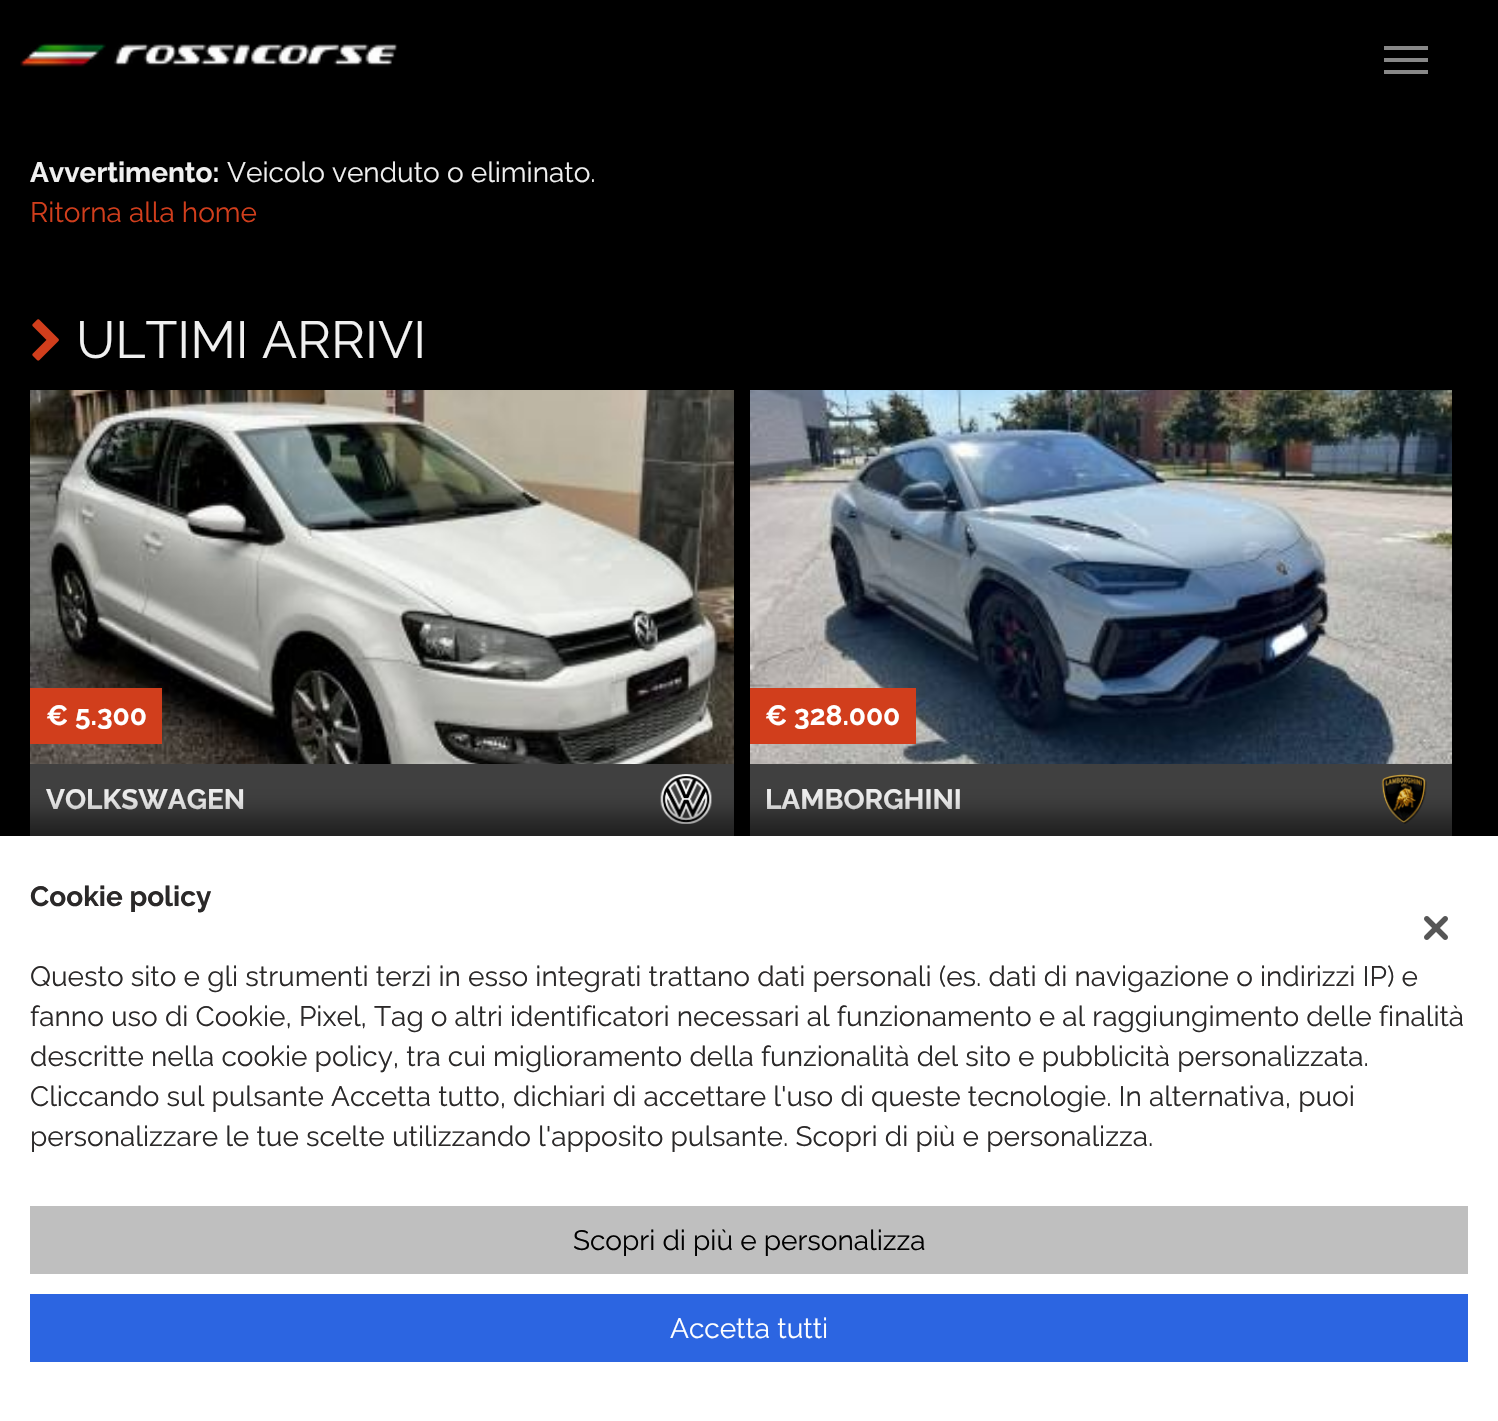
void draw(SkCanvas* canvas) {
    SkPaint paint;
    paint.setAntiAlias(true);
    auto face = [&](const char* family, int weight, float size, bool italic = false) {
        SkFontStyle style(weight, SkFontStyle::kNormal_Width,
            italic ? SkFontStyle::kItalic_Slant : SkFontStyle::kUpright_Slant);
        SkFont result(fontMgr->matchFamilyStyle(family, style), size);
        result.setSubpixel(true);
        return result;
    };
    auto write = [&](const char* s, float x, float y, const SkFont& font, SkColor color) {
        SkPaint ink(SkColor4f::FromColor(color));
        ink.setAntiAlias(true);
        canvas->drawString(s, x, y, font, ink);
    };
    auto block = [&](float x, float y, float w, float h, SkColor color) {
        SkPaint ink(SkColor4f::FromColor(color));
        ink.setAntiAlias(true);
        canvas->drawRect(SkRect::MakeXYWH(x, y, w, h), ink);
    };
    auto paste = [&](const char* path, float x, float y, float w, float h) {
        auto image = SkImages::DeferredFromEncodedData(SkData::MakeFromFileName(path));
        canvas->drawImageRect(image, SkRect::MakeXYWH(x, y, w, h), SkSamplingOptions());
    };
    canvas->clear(SK_ColorBLACK);
    paste("pic1.png", 20, 43, 378, 24);
    block(1384, 46, 44, 4, SkColorSetRGB(136, 136, 136));
    block(1384, 58, 44, 4, SkColorSetRGB(136, 136, 136));
    block(1384, 70, 44, 4, SkColorSetRGB(136, 136, 136));
    auto kFont1 = face("Raleway", 700, 28);
    write("Avvertimento:", 30, 182, kFont1, SkColorSetRGB(240, 240, 240));
    auto kFont2 = face("Raleway", 400, 28);
    write("Veicolo venduto o eliminato.", 227, 182, kFont2, SkColorSetRGB(240, 240, 240));
    write("Ritorna alla home", 30, 222, kFont2, SkColorSetRGB(209, 62, 28));
    paste("pic2.png", 32, 319, 27, 42);
    auto kFont3 = face("Raleway", 400, 52);
    write("ULTIMI ARRIVI", 76, 358, kFont3, SkColorSetRGB(240, 240, 240));
    block(30, 764, 704, 72, SkColorSetRGB(64, 64, 64));
    paste("pic3.png", 30, 390, 704, 374);
    block(30, 688, 132, 56, SkColorSetRGB(209, 62, 28));
    write("€ 5.300", 46, 725, kFont1, SK_ColorWHITE);
    write("VOLKSWAGEN", 46, 809, kFont1, SkColorSetRGB(240, 240, 240));
    paste("pic4.png", 660, 774, 52, 50);
    block(750, 764, 702, 72, SkColorSetRGB(64, 64, 64));
    paste("pic5.png", 750, 390, 702, 374);
    block(750, 688, 166, 56, SkColorSetRGB(209, 62, 28));
    write("€ 328.000", 765, 725, kFont1, SK_ColorWHITE);
    write("LAMBORGHINI", 765, 809, kFont1, SkColorSetRGB(240, 240, 240));
    paste("pic6.png", 1381, 774, 46, 50);
    paint.setColor(SkColorSetARGB(128, 0, 0, 0));
    paint.setMaskFilter(SkMaskFilter::MakeBlur(kNormal_SkBlurStyle, 12));
    canvas->drawRect(SkRect::MakeXYWH(0, 816, 1498, 586), paint);
    paint.setMaskFilter(nullptr);
    block(0, 836, 1498, 585, SK_ColorWHITE);
    write("Cookie policy", 30, 906, kFont1, SkColorSetRGB(43, 41, 41));
    write("Questo sito e gli strumenti terzi in esso integrati trattano dati personali (es. dati di navigazione o indirizzi IP) e", 30, 986, kFont2, SkColorSetRGB(43, 41, 41));
    write("fanno uso di Cookie, Pixel, Tag o altri identificatori necessari al funzionamento e al raggiungimento delle finalità", 30, 1026, kFont2, SkColorSetRGB(43, 41, 41));
    write("descritte nella cookie policy, tra cui miglioramento della funzionalità del sito e pubblicità personalizzata.", 30, 1066, kFont2, SkColorSetRGB(43, 41, 41));
    write("Cliccando sul pulsante Accetta tutto, dichiari di accettare l'uso di queste tecnologie. In alternativa, puoi", 30, 1106, kFont2, SkColorSetRGB(43, 41, 41));
    write("personalizzare le tue scelte utilizzando l'apposito pulsante. Scopri di più e personalizza.", 30, 1146, kFont2, SkColorSetRGB(43, 41, 41));
    block(30, 1206, 1438, 68, SkColorSetRGB(191, 191, 191));
    write("Scopri di più e personalizza", 573, 1250, kFont2, SK_ColorBLACK);
    block(30, 1294, 1438, 68, SkColorSetRGB(44, 101, 225));
    write("Accetta tutti", 670, 1338, kFont2, SK_ColorWHITE);
    paste("pic7.png", 1424, 916, 24, 24);
}
